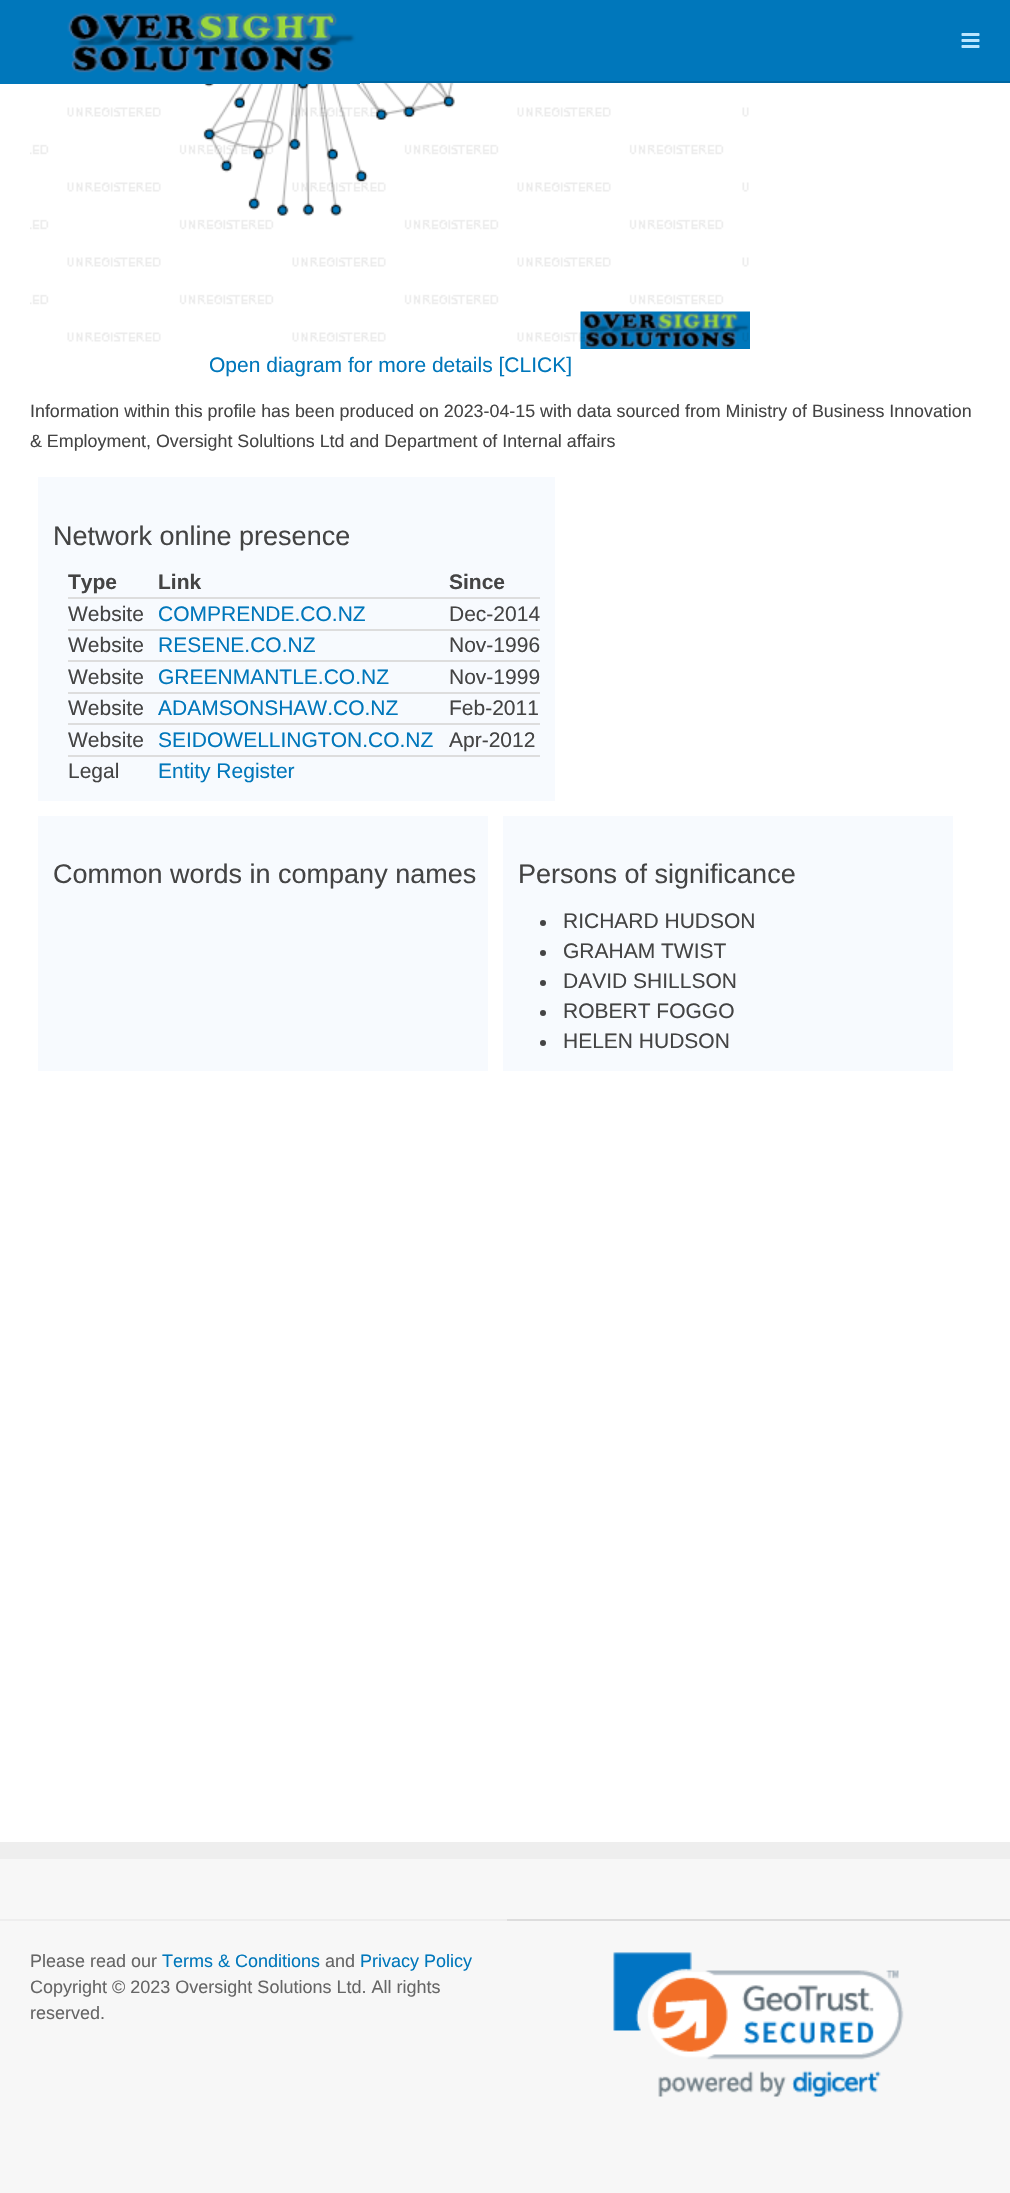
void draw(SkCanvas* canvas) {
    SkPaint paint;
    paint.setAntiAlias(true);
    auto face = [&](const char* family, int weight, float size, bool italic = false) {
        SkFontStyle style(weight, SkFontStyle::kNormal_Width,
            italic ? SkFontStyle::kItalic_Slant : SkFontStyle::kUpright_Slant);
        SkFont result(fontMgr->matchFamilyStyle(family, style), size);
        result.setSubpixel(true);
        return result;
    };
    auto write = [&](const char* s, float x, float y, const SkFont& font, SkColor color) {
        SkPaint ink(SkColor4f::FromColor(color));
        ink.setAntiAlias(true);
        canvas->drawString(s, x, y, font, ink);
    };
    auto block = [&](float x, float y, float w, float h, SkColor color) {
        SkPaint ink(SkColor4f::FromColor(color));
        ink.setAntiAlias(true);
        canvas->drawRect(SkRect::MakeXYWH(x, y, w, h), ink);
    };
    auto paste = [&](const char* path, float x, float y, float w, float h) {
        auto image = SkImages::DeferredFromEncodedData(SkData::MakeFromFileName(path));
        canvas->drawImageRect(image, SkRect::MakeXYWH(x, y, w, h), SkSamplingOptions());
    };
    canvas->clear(SK_ColorWHITE);
    block(360, 0, 650, 81, SkColorSetRGB(0, 119, 187));
    block(360, 81, 650, 2, SkColorSetRGB(0, 103, 162));
    paste("pic3.png", 30, 83, 720, 266);
    paste("pic1.png", 0, 0, 360, 84);
    paste("pic2.png", 961, 33, 19, 15);
    auto kFont1 = face("Liberation Sans", 400, 21);
    write("Open diagram for more details [CLICK]", 209, 372, kFont1, SkColorSetRGB(0, 119, 187));
    auto kFont2 = face("Liberation Sans", 400, 17.85f);
    write("Information within this profile has been produced", 30, 417, kFont2, SkColorSetRGB(68, 68, 68));
    write("on 2023-04-15 with data sourced from Ministry of Business Innovation", 419, 417, kFont2, SkColorSetRGB(68, 68, 68));
    write("& Employment, Oversight Solultions Ltd and Department of Internal affairs", 30, 447, kFont2, SkColorSetRGB(68, 68, 68));
    block(38, 477, 517, 324, SkColorSetRGB(247, 250, 254));
    auto kFont3 = face("Liberation Sans", 400, 27);
    write("Network online presence", 53, 545, kFont3, SkColorSetRGB(68, 68, 68));
    auto kFont4 = face("Liberation Sans", 700, 21);
    write("Type", 68, 589, kFont4, SkColorSetRGB(68, 68, 68));
    write("Link", 158, 589, kFont4, SkColorSetRGB(68, 68, 68));
    write("Since", 449, 589, kFont4, SkColorSetRGB(68, 68, 68));
    write("Website", 68, 621, kFont1, SkColorSetRGB(68, 68, 68));
    write("COMPRENDE.CO.NZ", 158, 621, kFont1, SkColorSetRGB(0, 119, 187));
    block(68, 597, 472, 2, SkColorSetRGB(221, 221, 221));
    write("Dec-2014", 449, 621, kFont1, SkColorSetRGB(68, 68, 68));
    write("Website", 68, 652, kFont1, SkColorSetRGB(68, 68, 68));
    write("RESENE.CO.NZ", 158, 652, kFont1, SkColorSetRGB(0, 119, 187));
    block(68, 629, 472, 2, SkColorSetRGB(221, 221, 221));
    write("Nov-1996", 449, 652, kFont1, SkColorSetRGB(68, 68, 68));
    write("Website", 68, 684, kFont1, SkColorSetRGB(68, 68, 68));
    write("GREENMANTLE.CO.NZ", 158, 684, kFont1, SkColorSetRGB(0, 119, 187));
    block(68, 660, 472, 2, SkColorSetRGB(221, 221, 221));
    write("Nov-1999", 449, 684, kFont1, SkColorSetRGB(68, 68, 68));
    write("Website", 68, 715, kFont1, SkColorSetRGB(68, 68, 68));
    write("ADAMSONSHAW.CO.NZ", 158, 715, kFont1, SkColorSetRGB(0, 119, 187));
    block(68, 692, 472, 2, SkColorSetRGB(221, 221, 221));
    write("Feb-2011", 449, 715, kFont1, SkColorSetRGB(68, 68, 68));
    write("Website", 68, 747, kFont1, SkColorSetRGB(68, 68, 68));
    write("SEIDOWELLINGTON.CO.NZ", 158, 747, kFont1, SkColorSetRGB(0, 119, 187));
    block(68, 723, 472, 2, SkColorSetRGB(221, 221, 221));
    write("Apr-2012", 449, 747, kFont1, SkColorSetRGB(68, 68, 68));
    block(68, 755, 472, 2, SkColorSetRGB(221, 221, 221));
    write("Legal", 68, 778, kFont1, SkColorSetRGB(68, 68, 68));
    write("Entity Register", 158, 778, kFont1, SkColorSetRGB(0, 119, 187));
    block(38, 816, 450, 255, SkColorSetRGB(247, 250, 254));
    write("Common words in company names", 53, 883, kFont3, SkColorSetRGB(68, 68, 68));
    block(503, 816, 450, 255, SkColorSetRGB(247, 250, 254));
    write("Persons of significance", 518, 883, kFont3, SkColorSetRGB(68, 68, 68));
    paint.setColor(SkColorSetRGB(68, 68, 68));
    canvas->drawCircle(543, 923, 3, paint);
    write("RICHARD HUDSON", 563, 928, kFont1, SkColorSetRGB(68, 68, 68));
    canvas->drawCircle(543, 953, 3, paint);
    write("GRAHAM TWIST", 563, 958, kFont1, SkColorSetRGB(68, 68, 68));
    canvas->drawCircle(543, 983, 3, paint);
    write("DAVID SHILLSON", 563, 988, kFont1, SkColorSetRGB(68, 68, 68));
    canvas->drawCircle(543, 1013, 3, paint);
    write("ROBERT FOGGO", 563, 1018, kFont1, SkColorSetRGB(68, 68, 68));
    canvas->drawCircle(543, 1043, 3, paint);
    write("HELEN HUDSON", 563, 1048, kFont1, SkColorSetRGB(68, 68, 68));
    block(0, 1842, 1010, 17, SkColorSetRGB(238, 238, 238));
    block(0, 1859, 1010, 334, SkColorSetRGB(247, 247, 247));
    block(506, 1919, 504, 2, SkColorSetRGB(221, 221, 221));
    block(0, 1919, 507, 2, SkColorSetRGB(238, 238, 238));
    auto kFont5 = face("Liberation Sans", 400, 18);
    write("Please read our", 30, 1967, kFont5, SkColorSetRGB(102, 102, 102));
    write("Terms & Conditions", 162, 1967, kFont5, SkColorSetRGB(0, 119, 187));
    write("and", 325, 1967, kFont5, SkColorSetRGB(102, 102, 102));
    write("Privacy Policy", 360, 1967, kFont5, SkColorSetRGB(0, 119, 187));
    write("Copyright © 2023 Oversight Solutions Ltd. All rights", 30, 1993, kFont5, SkColorSetRGB(102, 102, 102));
    write("reserved.", 30, 2019, kFont5, SkColorSetRGB(102, 102, 102));
    paste("pic4.png", 613, 1952, 291, 145);
}
